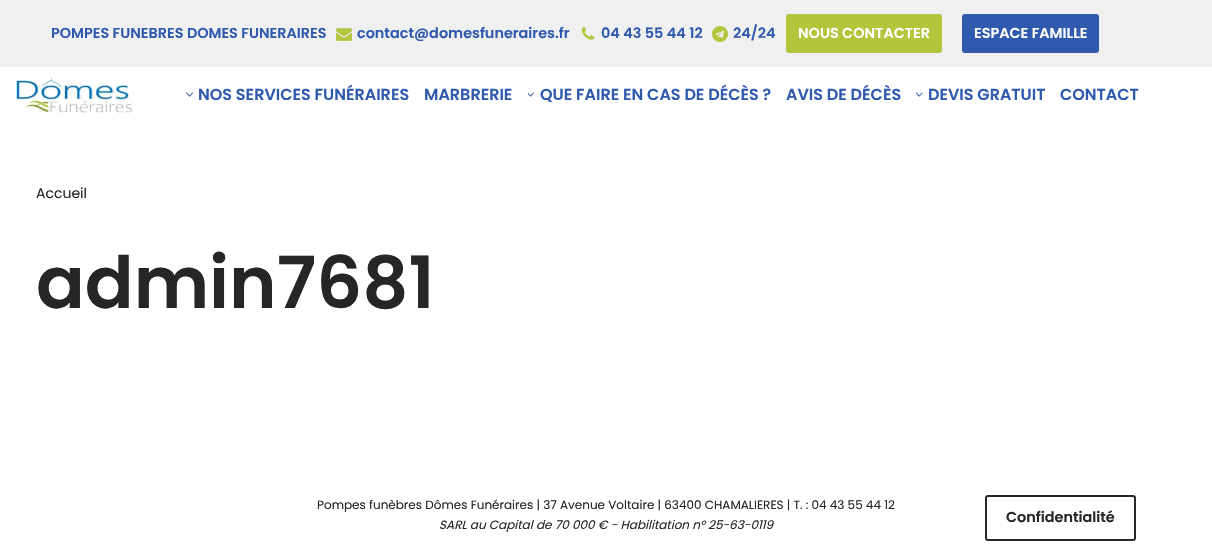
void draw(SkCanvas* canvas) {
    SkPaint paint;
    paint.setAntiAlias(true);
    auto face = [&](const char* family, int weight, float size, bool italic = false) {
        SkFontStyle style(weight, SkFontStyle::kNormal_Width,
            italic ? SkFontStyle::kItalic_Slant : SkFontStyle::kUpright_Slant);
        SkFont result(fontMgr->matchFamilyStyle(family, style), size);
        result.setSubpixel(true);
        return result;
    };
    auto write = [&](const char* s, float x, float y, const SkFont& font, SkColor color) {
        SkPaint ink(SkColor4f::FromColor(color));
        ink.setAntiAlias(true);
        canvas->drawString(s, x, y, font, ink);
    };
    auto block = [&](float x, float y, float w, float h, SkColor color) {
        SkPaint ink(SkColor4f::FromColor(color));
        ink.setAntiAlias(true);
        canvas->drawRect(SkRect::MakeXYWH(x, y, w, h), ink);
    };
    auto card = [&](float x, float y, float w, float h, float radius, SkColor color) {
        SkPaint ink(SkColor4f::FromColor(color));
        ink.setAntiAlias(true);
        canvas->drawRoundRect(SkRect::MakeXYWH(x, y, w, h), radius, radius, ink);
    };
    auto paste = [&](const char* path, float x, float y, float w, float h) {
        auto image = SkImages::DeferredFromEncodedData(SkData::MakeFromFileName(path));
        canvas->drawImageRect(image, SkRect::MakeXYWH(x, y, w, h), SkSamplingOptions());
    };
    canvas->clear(SK_ColorWHITE);
    block(0, 0, 1212, 67, SkColorSetRGB(240, 240, 240));
    auto kFont1 = face("Poppins", 600, 14.4f);
    write("POMPES FUNEBRES DOMES FUNERAIRES", 51, 38, kFont1, SkColorSetRGB(47, 90, 174));
    paste("pic1.png", 336, 28, 16, 13);
    write("contact@domesfuneraires.fr", 357, 38, kFont1, SkColorSetRGB(47, 90, 174));
    paste("pic2.png", 581, 27, 14, 13);
    write("04 43 55 44 12", 601, 38, kFont1, SkColorSetRGB(47, 90, 174));
    paste("pic3.png", 712, 26, 16, 16);
    write("24/24", 733, 38, kFont1, SkColorSetRGB(47, 90, 174));
    card(786, 14, 156, 39, 3, SkColorSetRGB(179, 197, 58));
    write("NOUS CONTACTER", 798, 38, kFont1, SK_ColorWHITE);
    card(962, 14, 137, 39, 3, SkColorSetRGB(47, 90, 174));
    write("ESPACE FAMILLE", 974, 38, kFont1, SK_ColorWHITE);
    paste("pic4.png", 15, 77, 118, 36);
    paste("pic5.png", 186, 92, 7, 5);
    auto kFont2 = face("Poppins", 600, 16);
    write("NOS SERVICES FUNÉRAIRES", 198, 100, kFont2, SkColorSetRGB(47, 90, 174));
    write("MARBRERIE", 424, 100, kFont2, SkColorSetRGB(47, 90, 174));
    paste("pic6.png", 528, 92, 6, 5);
    write("QUE FAIRE EN CAS DE DÉCÈS ?", 540, 100, kFont2, SkColorSetRGB(47, 90, 174));
    write("AVIS DE DÉCÈS", 786, 100, kFont2, SkColorSetRGB(47, 90, 174));
    paste("pic7.png", 916, 92, 7, 5);
    write("DEVIS GRATUIT", 928, 100, kFont2, SkColorSetRGB(47, 90, 174));
    write("CONTACT", 1060, 100, kFont2, SkColorSetRGB(47, 90, 174));
    auto kFont3 = face("Poppins", 400, 14);
    write("Accueil", 36, 198, kFont3, SkColorSetRGB(39, 38, 38));
    auto kFont4 = face("Poppins", 600, 72);
    write("admin7681", 36, 308, kFont4, SkColorSetRGB(39, 38, 38));
    auto kFont5 = face("Poppins", 400, 12);
    write("Pompes funèbres Dômes Funéraires | 37 Avenue Voltaire | 63400 CHAMALIERES | T. : 04 43 55 44 12", 317, 509, kFont5, SkColorSetRGB(39, 38, 38));
    auto kFont6 = face("Poppins", 400, 12, true);
    write("SARL au Capital de 70 000 € - Habilitation n° 25-63-0119", 439, 529, kFont6, SkColorSetRGB(39, 38, 38));
    paint.setStyle(SkPaint::kStroke_Style);
    paint.setStrokeWidth(2);
    paint.setColor(SkColorSetRGB(39, 38, 38));
    canvas->drawRoundRect(SkRect::MakeXYWH(986, 496, 149, 44), 2, 2, paint);
    write("Confidentialité", 1006, 522, kFont1, SkColorSetRGB(39, 38, 38));
}
